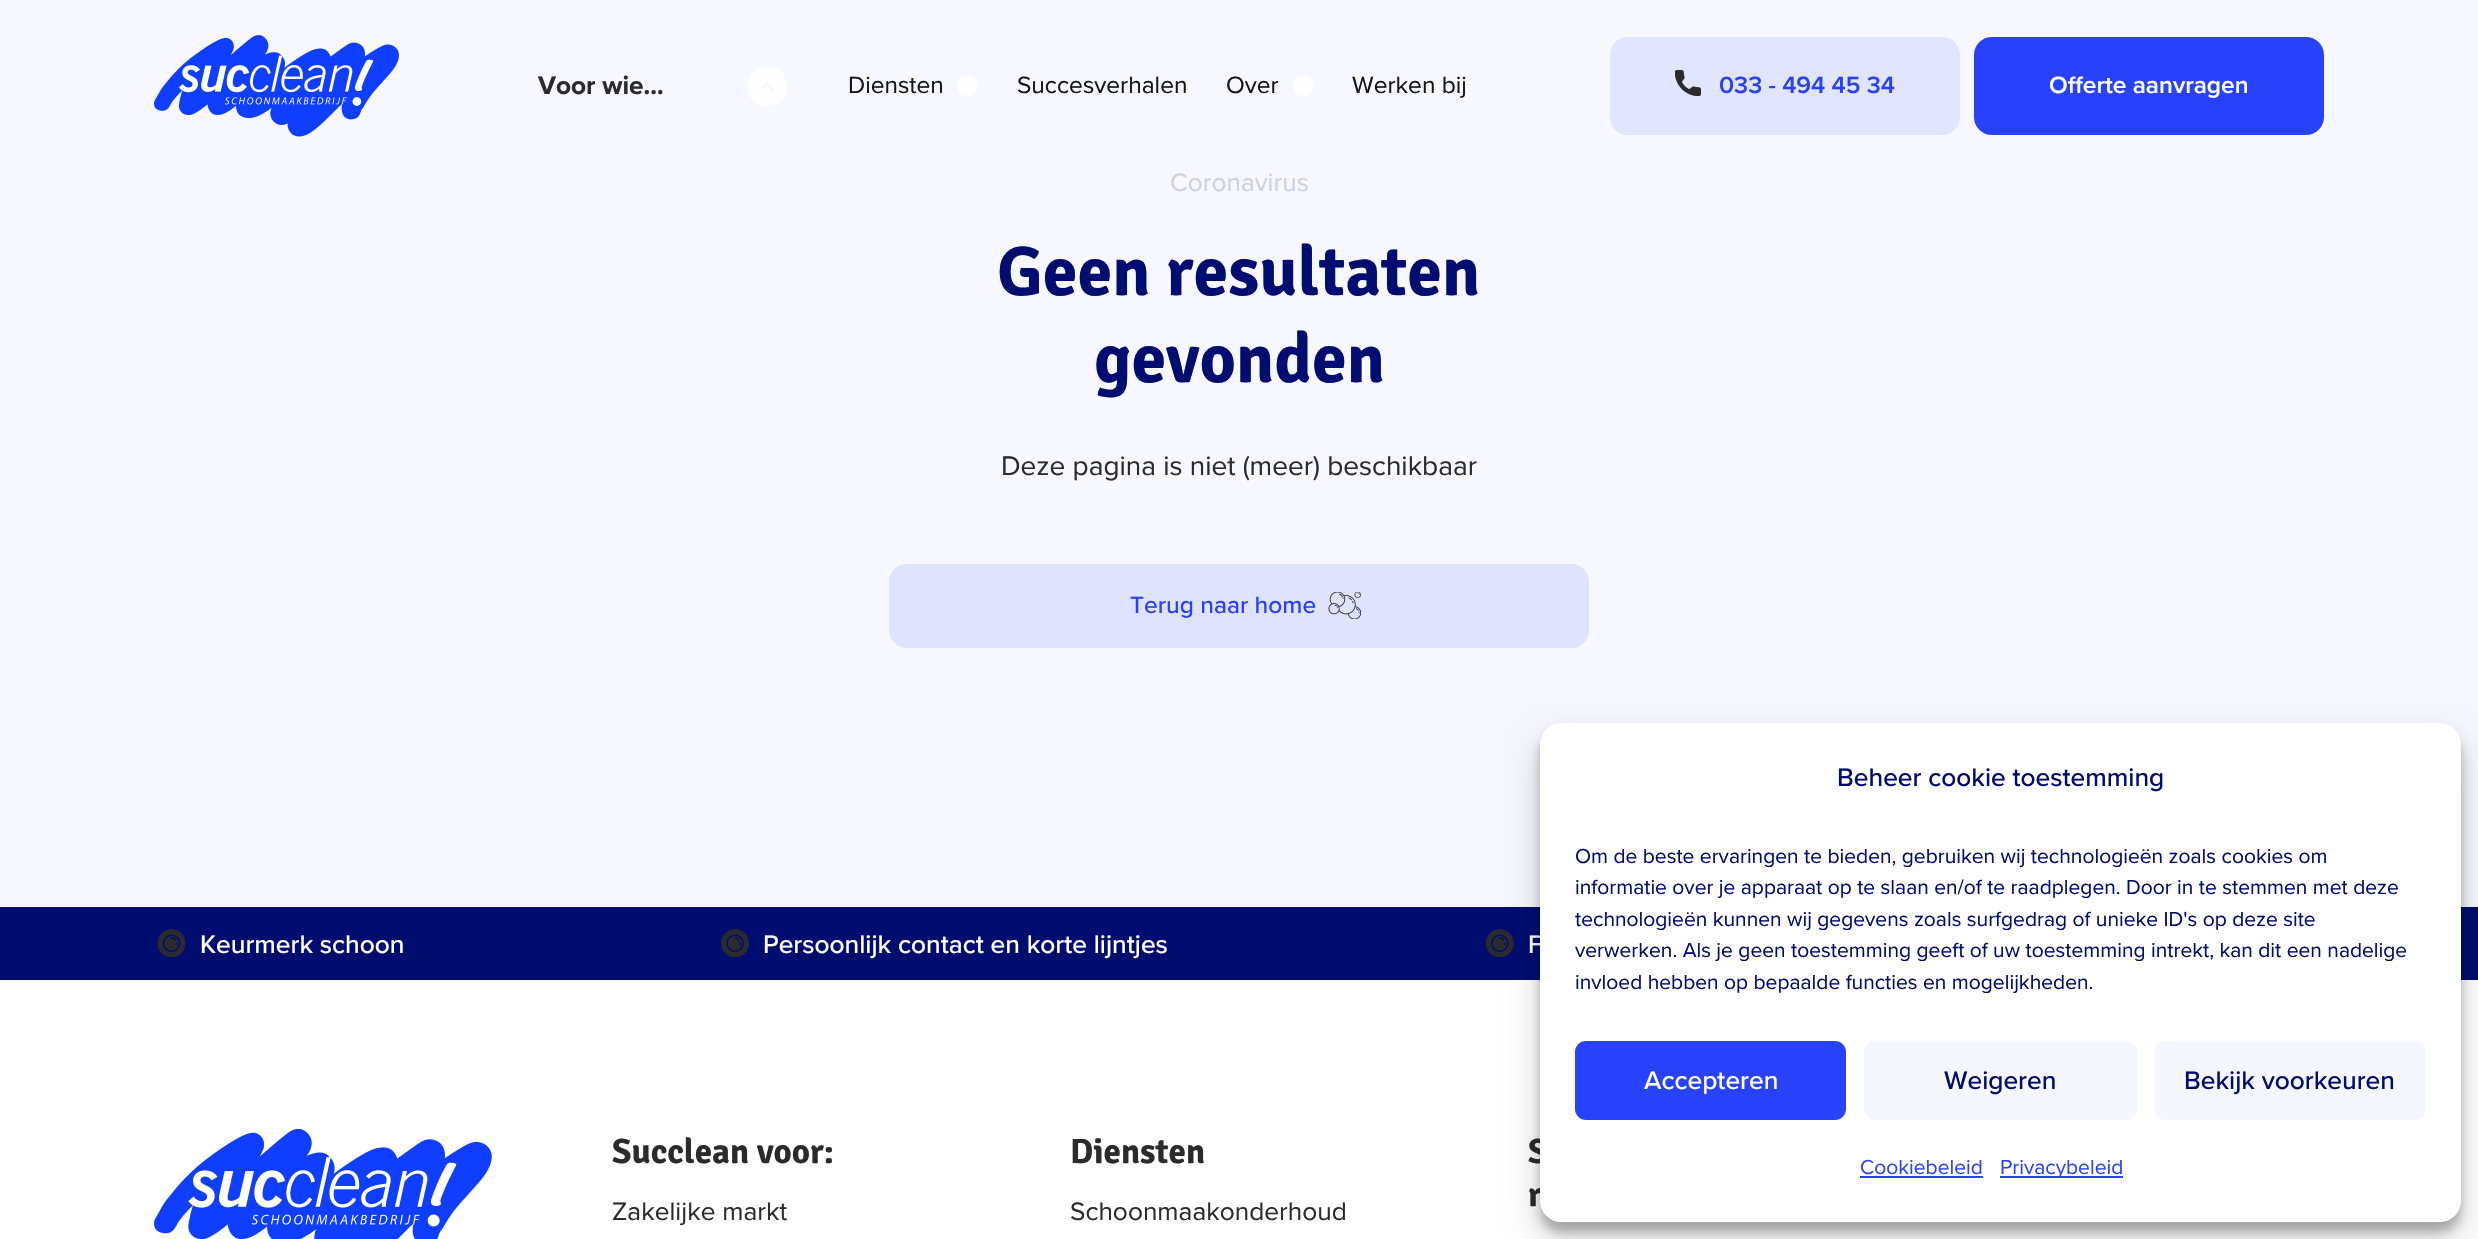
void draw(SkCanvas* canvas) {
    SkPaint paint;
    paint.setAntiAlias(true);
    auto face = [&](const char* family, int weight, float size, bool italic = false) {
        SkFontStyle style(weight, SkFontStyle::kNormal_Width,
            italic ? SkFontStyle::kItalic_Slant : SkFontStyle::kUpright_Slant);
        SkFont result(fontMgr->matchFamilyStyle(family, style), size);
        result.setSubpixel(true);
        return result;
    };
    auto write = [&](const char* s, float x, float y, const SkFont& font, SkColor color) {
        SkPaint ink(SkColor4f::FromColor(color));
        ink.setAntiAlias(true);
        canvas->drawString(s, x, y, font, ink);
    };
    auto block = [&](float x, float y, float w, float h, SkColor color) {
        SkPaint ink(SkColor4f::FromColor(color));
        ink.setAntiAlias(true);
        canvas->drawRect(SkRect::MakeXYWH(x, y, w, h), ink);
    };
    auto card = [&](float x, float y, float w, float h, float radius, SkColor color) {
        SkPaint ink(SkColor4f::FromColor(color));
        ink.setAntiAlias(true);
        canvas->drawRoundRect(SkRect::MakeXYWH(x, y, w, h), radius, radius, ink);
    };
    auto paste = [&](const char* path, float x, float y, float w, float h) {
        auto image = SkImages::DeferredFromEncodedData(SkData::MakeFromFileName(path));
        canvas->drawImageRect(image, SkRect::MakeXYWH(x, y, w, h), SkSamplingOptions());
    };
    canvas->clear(SK_ColorWHITE);
    block(0, 0, 2478, 907, SkColorSetRGB(246, 247, 255));
    paste("pic1.png", 154, 35, 245, 102);
    auto kFont1 = face("Proxima Nova", 700, 26.25f);
    write("Voor wie…", 538, 94, kFont1, SkColorSetRGB(43, 43, 43));
    canvas->save();
    canvas->clipRect(SkRect::MakeXYWH(747, 67, 41, 40));
    paint.setColor(SkColorSetRGB(254, 254, 254));
    canvas->drawPath(SkPathBuilder().moveTo(767, 107).cubicTo(741, 107, 741, 67, 767, 66).cubicTo(794, 66, 794, 107, 767, 107).close().moveTo(767, 86).lineTo(770, 89).cubicTo(772, 90, 775, 91, 774, 89).lineTo(770, 85).cubicTo(770, 85, 768, 83, 767, 83).cubicTo(766, 83, 759, 89, 762, 90).lineTo(763, 90).close().detach(), paint);
    canvas->restore();
    auto kFont2 = face("Proxima Nova", 400, 24.5f);
    write("Diensten", 848, 93, kFont2, SkColorSetRGB(20, 20, 20));
    paste("pic2.png", 957, 75, 21, 21);
    write("Succesverhalen", 1017, 93, kFont2, SkColorSetRGB(20, 20, 20));
    write("Over", 1226, 93, kFont2, SkColorSetRGB(20, 20, 20));
    paste("pic2.png", 1293, 75, 21, 21);
    write("Werken bij", 1352, 93, kFont2, SkColorSetRGB(20, 20, 20));
    card(1610, 37, 350, 98, 18, SkColorSetRGB(225, 229, 255));
    paste("pic3.png", 1675, 70, 26, 26);
    auto kFont3 = face("Proxima Nova", 600, 24.5f);
    write("033 - 494 45 34", 1719, 93, kFont3, SkColorSetRGB(40, 65, 250));
    card(1974, 37, 350, 98, 18, SkColorSetRGB(40, 65, 250));
    write("Offerte aanvragen", 2049, 93, kFont3, SK_ColorWHITE);
    auto kFont4 = face("Proxima Nova", 400, 26.25f);
    write("Coronavirus", 1170, 191, kFont4, SkColorSetRGB(205, 208, 230));
    auto kFont5 = face("Signika Negative", 700, 70);
    write("Geen resultaten", 997, 295, kFont5, SkColorSetRGB(0, 13, 112));
    write("gevonden", 1094, 382, kFont5, SkColorSetRGB(0, 13, 112));
    auto kFont6 = face("Proxima Nova", 400, 28);
    write("Deze pagina is niet (meer) beschikbaar", 1001, 475, kFont6, SkColorSetRGB(43, 43, 43));
    card(889, 564, 700, 84, 18, SkColorSetRGB(223, 227, 254));
    auto kFont7 = face("Proxima Nova", 500, 24.5f);
    write("Terug naar home", 1130, 613, kFont7, SkColorSetRGB(40, 65, 250));
    paste("pic4.png", 1328, 592, 33, 27);
    block(0, 907, 2478, 73, SkColorSetRGB(0, 13, 112));
    paste("pic5.png", 158, 929, 28, 28);
    auto kFont8 = face("Proxima Nova", 500, 26.25f);
    write("Keurmerk schoon", 200, 953, kFont8, SK_ColorWHITE);
    paste("pic6.png", 721, 929, 28, 28);
    write("Persoonlijk contact en korte lijntjes", 763, 953, kFont8, SK_ColorWHITE);
    paste("pic7.png", 1486, 929, 28, 28);
    write("F", 1528, 953, kFont8, SK_ColorWHITE);
    paste("pic8.png", 154, 1129, 338, 110);
    auto kFont9 = face("Signika Negative", 700, 35);
    write("Succlean voor:", 612, 1163, kFont9, SkColorSetRGB(43, 43, 43));
    write("Zakelijke markt", 612, 1220, kFont4, SkColorSetRGB(43, 43, 43));
    write("Diensten", 1070, 1163, kFont9, SkColorSetRGB(43, 43, 43));
    write("Schoonmaakonderhoud", 1070, 1220, kFont4, SkColorSetRGB(43, 43, 43));
    write("S", 1528, 1163, kFont9, SkColorSetRGB(43, 43, 43));
    write("r", 1528, 1206, kFont9, SkColorSetRGB(43, 43, 43));
    paint.setColor(SkColorSetARGB(59, 0, 0, 0));
    paint.setMaskFilter(SkMaskFilter::MakeBlur(kNormal_SkBlurStyle, 5));
    canvas->drawRoundRect(SkRect::MakeXYWH(1540, 733, 921, 499), 21, 21, paint);
    paint.setMaskFilter(nullptr);
    paint.setColor(SkColorSetARGB(48, 0, 0, 0));
    paint.setMaskFilter(SkMaskFilter::MakeBlur(kNormal_SkBlurStyle, 17.5f));
    canvas->drawRoundRect(SkRect::MakeXYWH(1540, 740, 921, 499), 21, 21, paint);
    paint.setMaskFilter(nullptr);
    card(1540, 723, 921, 499, 21, SK_ColorWHITE);
    write("Beheer cookie toestemming", 1837, 786, kFont8, SkColorSetRGB(0, 13, 112));
    auto kFont10 = face("Proxima Nova", 400, 21);
    write("Om de beste ervaringen te bieden, gebruiken wij technologieën zoals cookies om", 1575, 863, kFont10, SkColorSetRGB(0, 13, 112));
    write("informatie over je apparaat op te slaan en/of te raadplegen. Door in te stemmen met deze", 1575, 894, kFont10, SkColorSetRGB(0, 13, 112));
    write("technologieën kunnen wij gegevens zoals surfgedrag of unieke ID's op deze site", 1575, 926, kFont10, SkColorSetRGB(0, 13, 112));
    write("verwerken. Als je geen toestemming geeft of uw toestemming intrekt, kan dit een nadelige", 1575, 957, kFont10, SkColorSetRGB(0, 13, 112));
    write("invloed hebben op bepaalde functies en mogelijkheden.", 1575, 989, kFont10, SkColorSetRGB(0, 13, 112));
    paint.setColor(SkColorSetRGB(40, 65, 250));
    canvas->drawRoundRect(SkRect::MakeXYWH(1576, 1042, 269, 77), 10, 10, paint);
    paint.setStyle(SkPaint::kStroke_Style);
    paint.setStrokeWidth(2);
    canvas->drawRoundRect(SkRect::MakeXYWH(1576, 1042, 269, 77), 10, 10, paint);
    write("Accepteren", 1644, 1089, kFont8, SK_ColorWHITE);
    card(1864, 1041, 273, 79, 11, SkColorSetRGB(245, 247, 255));
    write("Weigeren", 1944, 1089, kFont8, SkColorSetRGB(0, 13, 112));
    card(2154, 1041, 272, 79, 11, SkColorSetRGB(245, 247, 255));
    write("Bekijk voorkeuren", 2184, 1089, kFont8, SkColorSetRGB(0, 13, 112));
    write("Cookiebeleid", 1860, 1174, kFont10, SkColorSetRGB(40, 65, 250));
    block(1860, 1176, 123, 2, SkColorSetRGB(40, 65, 250));
    block(2000, 1176, 123, 2, SkColorSetRGB(40, 65, 250));
    write("Privacybeleid", 2000, 1174, kFont10, SkColorSetRGB(40, 65, 250));
}
